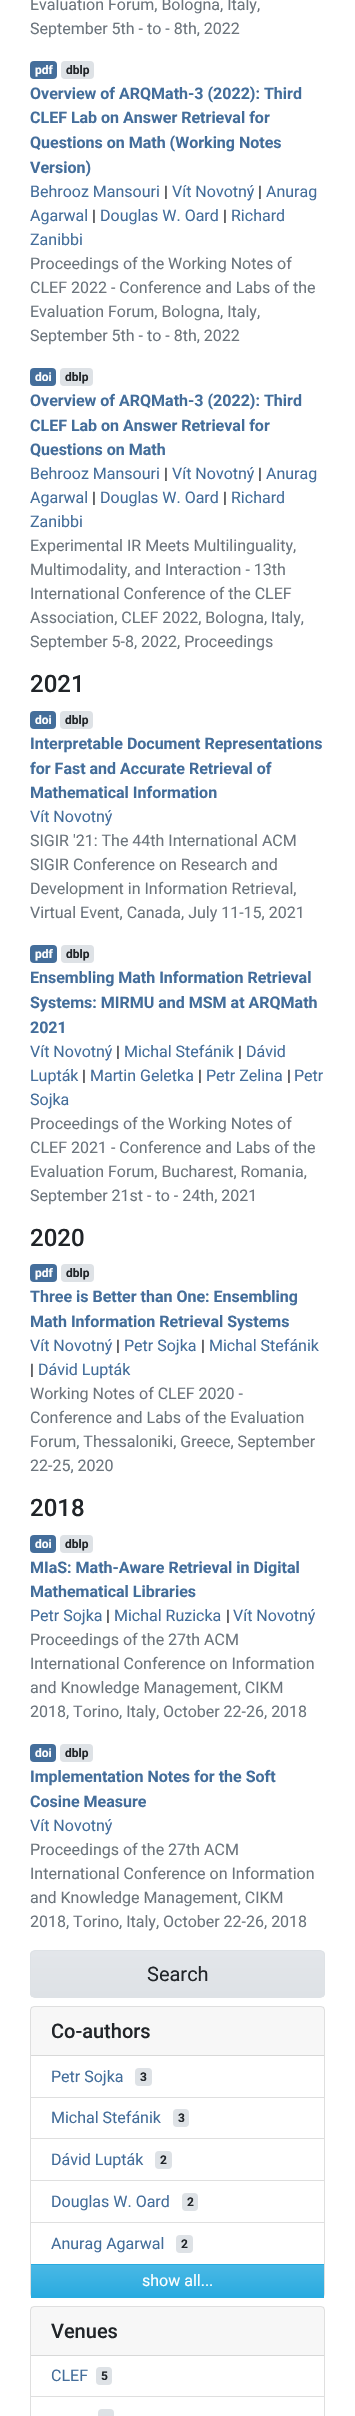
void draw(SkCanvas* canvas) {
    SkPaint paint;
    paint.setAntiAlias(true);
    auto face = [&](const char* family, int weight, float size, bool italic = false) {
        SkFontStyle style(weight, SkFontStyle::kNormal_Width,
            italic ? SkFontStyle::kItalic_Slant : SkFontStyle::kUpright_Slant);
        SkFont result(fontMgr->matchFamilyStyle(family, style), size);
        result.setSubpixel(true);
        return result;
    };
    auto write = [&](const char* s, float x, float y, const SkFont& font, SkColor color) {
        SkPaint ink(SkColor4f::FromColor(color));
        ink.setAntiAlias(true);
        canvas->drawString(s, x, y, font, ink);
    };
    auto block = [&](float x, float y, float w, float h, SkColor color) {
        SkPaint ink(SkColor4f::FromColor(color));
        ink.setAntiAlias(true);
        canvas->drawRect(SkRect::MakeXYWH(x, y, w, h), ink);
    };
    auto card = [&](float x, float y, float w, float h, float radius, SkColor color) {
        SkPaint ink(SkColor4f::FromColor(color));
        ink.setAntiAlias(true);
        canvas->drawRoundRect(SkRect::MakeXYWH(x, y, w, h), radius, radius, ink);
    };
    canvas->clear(SK_ColorWHITE);
    auto kFont1 = face("Roboto", 400, 16);
    write("Evaluation Forum, Bologna, Italy,", 30, 10, kFont1, SkColorSetRGB(108, 117, 125));
    write("September 5th - to - 8th, 2022", 30, 34, kFont1, SkColorSetRGB(108, 117, 125));
    card(30, 61, 27, 18, 4, SkColorSetRGB(68, 110, 155));
    auto kFont2 = face("Roboto", 700, 12);
    write("pdf", 35, 74, kFont2, SK_ColorWHITE);
    card(61, 61, 33, 18, 4, SkColorSetRGB(222, 226, 230));
    write("dblp", 66, 74, kFont2, SkColorSetRGB(33, 37, 41));
    auto kFont3 = face("Roboto", 700, 16);
    write("Overview of ARQMath-3 (2022): Third", 30, 99, kFont3, SkColorSetRGB(68, 110, 155));
    write("CLEF Lab on Answer Retrieval for", 30, 123, kFont3, SkColorSetRGB(68, 110, 155));
    write("Questions on Math (Working Notes", 30, 148, kFont3, SkColorSetRGB(68, 110, 155));
    write("Version)", 30, 173, kFont3, SkColorSetRGB(68, 110, 155));
    write("Behrooz Mansouri", 30, 197, kFont1, SkColorSetRGB(68, 110, 155));
    write("|", 164, 197, kFont1, SkColorSetRGB(33, 37, 41));
    write("Vít Novotný", 172, 197, kFont1, SkColorSetRGB(68, 110, 155));
    write("|", 258, 197, kFont1, SkColorSetRGB(33, 37, 41));
    write("Anurag", 266, 197, kFont1, SkColorSetRGB(68, 110, 155));
    write("Agarwal", 30, 221, kFont1, SkColorSetRGB(68, 110, 155));
    write("|", 92, 221, kFont1, SkColorSetRGB(33, 37, 41));
    write("Douglas W. Oard", 100, 221, kFont1, SkColorSetRGB(68, 110, 155));
    write("|", 223, 221, kFont1, SkColorSetRGB(33, 37, 41));
    write("Richard", 231, 221, kFont1, SkColorSetRGB(68, 110, 155));
    write("Zanibbi", 30, 245, kFont1, SkColorSetRGB(68, 110, 155));
    write("Proceedings of the Working Notes of", 30, 269, kFont1, SkColorSetRGB(108, 117, 125));
    write("CLEF 2022 - Conference and Labs of the", 30, 293, kFont1, SkColorSetRGB(108, 117, 125));
    write("Evaluation Forum, Bologna, Italy,", 30, 317, kFont1, SkColorSetRGB(108, 117, 125));
    write("September 5th - to - 8th, 2022", 30, 341, kFont1, SkColorSetRGB(108, 117, 125));
    card(30, 368, 26, 18, 4, SkColorSetRGB(68, 110, 155));
    write("doi", 35, 381, kFont2, SK_ColorWHITE);
    card(60, 368, 33, 18, 4, SkColorSetRGB(222, 226, 230));
    write("dblp", 65, 381, kFont2, SkColorSetRGB(33, 37, 41));
    write("Overview of ARQMath-3 (2022): Third", 30, 406, kFont3, SkColorSetRGB(68, 110, 155));
    write("CLEF Lab on Answer Retrieval for", 30, 431, kFont3, SkColorSetRGB(68, 110, 155));
    write("Questions on Math", 30, 455, kFont3, SkColorSetRGB(68, 110, 155));
    write("Behrooz Mansouri", 30, 479, kFont1, SkColorSetRGB(68, 110, 155));
    write("|", 164, 479, kFont1, SkColorSetRGB(33, 37, 41));
    write("Vít Novotný", 172, 479, kFont1, SkColorSetRGB(68, 110, 155));
    write("|", 258, 479, kFont1, SkColorSetRGB(33, 37, 41));
    write("Anurag", 266, 479, kFont1, SkColorSetRGB(68, 110, 155));
    write("Agarwal", 30, 503, kFont1, SkColorSetRGB(68, 110, 155));
    write("|", 92, 503, kFont1, SkColorSetRGB(33, 37, 41));
    write("Douglas W. Oard", 100, 503, kFont1, SkColorSetRGB(68, 110, 155));
    write("|", 223, 503, kFont1, SkColorSetRGB(33, 37, 41));
    write("Richard", 231, 503, kFont1, SkColorSetRGB(68, 110, 155));
    write("Zanibbi", 30, 527, kFont1, SkColorSetRGB(68, 110, 155));
    write("Experimental IR Meets Multilinguality,", 30, 551, kFont1, SkColorSetRGB(108, 117, 125));
    write("Multimodality, and Interaction - 13th", 30, 575, kFont1, SkColorSetRGB(108, 117, 125));
    write("International Conference of the CLEF", 30, 599, kFont1, SkColorSetRGB(108, 117, 125));
    write("Association, CLEF 2022, Bologna, Italy,", 30, 623, kFont1, SkColorSetRGB(108, 117, 125));
    write("September 5-8, 2022, Proceedings", 30, 647, kFont1, SkColorSetRGB(108, 117, 125));
    auto kFont4 = face("Roboto", 500, 24);
    write("2021", 30, 692, kFont4, SkColorSetRGB(33, 37, 41));
    card(30, 711, 26, 18, 4, SkColorSetRGB(68, 110, 155));
    write("doi", 35, 724, kFont2, SK_ColorWHITE);
    card(60, 711, 33, 18, 4, SkColorSetRGB(222, 226, 230));
    write("dblp", 65, 724, kFont2, SkColorSetRGB(33, 37, 41));
    write("Interpretable Document Representations", 30, 749, kFont3, SkColorSetRGB(68, 110, 155));
    write("for Fast and Accurate Retrieval of", 30, 774, kFont3, SkColorSetRGB(68, 110, 155));
    write("Mathematical Information", 30, 798, kFont3, SkColorSetRGB(68, 110, 155));
    write("Vít Novotný", 30, 822, kFont1, SkColorSetRGB(68, 110, 155));
    write("SIGIR '21: The 44th International ACM", 30, 846, kFont1, SkColorSetRGB(108, 117, 125));
    write("SIGIR Conference on Research and", 30, 870, kFont1, SkColorSetRGB(108, 117, 125));
    write("Development in Information Retrieval,", 30, 894, kFont1, SkColorSetRGB(108, 117, 125));
    write("Virtual Event, Canada, July 11-15, 2021", 30, 918, kFont1, SkColorSetRGB(108, 117, 125));
    card(30, 945, 27, 18, 4, SkColorSetRGB(68, 110, 155));
    write("pdf", 35, 958, kFont2, SK_ColorWHITE);
    card(61, 945, 33, 18, 4, SkColorSetRGB(222, 226, 230));
    write("dblp", 66, 958, kFont2, SkColorSetRGB(33, 37, 41));
    write("Ensembling Math Information Retrieval", 30, 983, kFont3, SkColorSetRGB(68, 110, 155));
    write("Systems: MIRMU and MSM at ARQMath", 30, 1008, kFont3, SkColorSetRGB(68, 110, 155));
    write("2021", 30, 1033, kFont3, SkColorSetRGB(68, 110, 155));
    write("Vít Novotný", 30, 1057, kFont1, SkColorSetRGB(68, 110, 155));
    write("|", 116, 1057, kFont1, SkColorSetRGB(33, 37, 41));
    write("Michal Stefánik", 124, 1057, kFont1, SkColorSetRGB(68, 110, 155));
    write("|", 238, 1057, kFont1, SkColorSetRGB(33, 37, 41));
    write("Dávid", 246, 1057, kFont1, SkColorSetRGB(68, 110, 155));
    write("Lupták", 30, 1081, kFont1, SkColorSetRGB(68, 110, 155));
    write("|", 82, 1081, kFont1, SkColorSetRGB(33, 37, 41));
    write("Martin Geletka", 90, 1081, kFont1, SkColorSetRGB(68, 110, 155));
    write("|", 198, 1081, kFont1, SkColorSetRGB(33, 37, 41));
    write("Petr Zelina", 206, 1081, kFont1, SkColorSetRGB(68, 110, 155));
    write("|", 287, 1081, kFont1, SkColorSetRGB(33, 37, 41));
    write("Petr", 294, 1081, kFont1, SkColorSetRGB(68, 110, 155));
    write("Sojka", 30, 1105, kFont1, SkColorSetRGB(68, 110, 155));
    write("Proceedings of the Working Notes of", 30, 1129, kFont1, SkColorSetRGB(108, 117, 125));
    write("CLEF 2021 - Conference and Labs of the", 30, 1153, kFont1, SkColorSetRGB(108, 117, 125));
    write("Evaluation Forum, Bucharest, Romania,", 30, 1177, kFont1, SkColorSetRGB(108, 117, 125));
    write("September 21st - to - 24th, 2021", 30, 1201, kFont1, SkColorSetRGB(108, 117, 125));
    write("2020", 30, 1246, kFont4, SkColorSetRGB(33, 37, 41));
    card(30, 1264, 27, 18, 4, SkColorSetRGB(68, 110, 155));
    write("pdf", 35, 1277, kFont2, SK_ColorWHITE);
    card(61, 1264, 33, 18, 4, SkColorSetRGB(222, 226, 230));
    write("dblp", 66, 1277, kFont2, SkColorSetRGB(33, 37, 41));
    write("Three is Better than One: Ensembling", 30, 1302, kFont3, SkColorSetRGB(68, 110, 155));
    write("Math Information Retrieval Systems", 30, 1327, kFont3, SkColorSetRGB(68, 110, 155));
    write("Vít Novotný", 30, 1351, kFont1, SkColorSetRGB(68, 110, 155));
    write("|", 116, 1351, kFont1, SkColorSetRGB(33, 37, 41));
    write("Petr Sojka", 124, 1351, kFont1, SkColorSetRGB(68, 110, 155));
    write("|", 201, 1351, kFont1, SkColorSetRGB(33, 37, 41));
    write("Michal Stefánik", 209, 1351, kFont1, SkColorSetRGB(68, 110, 155));
    write("|", 30, 1375, kFont1, SkColorSetRGB(33, 37, 41));
    write("Dávid Lupták", 38, 1375, kFont1, SkColorSetRGB(68, 110, 155));
    write("Working Notes of CLEF 2020 -", 30, 1399, kFont1, SkColorSetRGB(108, 117, 125));
    write("Conference and Labs of the Evaluation", 30, 1423, kFont1, SkColorSetRGB(108, 117, 125));
    write("Forum, Thessaloniki, Greece, September", 30, 1447, kFont1, SkColorSetRGB(108, 117, 125));
    write("22-25, 2020", 30, 1471, kFont1, SkColorSetRGB(108, 117, 125));
    write("2018", 30, 1516, kFont4, SkColorSetRGB(33, 37, 41));
    card(30, 1535, 26, 18, 4, SkColorSetRGB(68, 110, 155));
    write("doi", 35, 1548, kFont2, SK_ColorWHITE);
    card(60, 1535, 33, 18, 4, SkColorSetRGB(222, 226, 230));
    write("dblp", 65, 1548, kFont2, SkColorSetRGB(33, 37, 41));
    write("MIaS: Math-Aware Retrieval in Digital", 30, 1573, kFont3, SkColorSetRGB(68, 110, 155));
    write("Mathematical Libraries", 30, 1597, kFont3, SkColorSetRGB(68, 110, 155));
    write("Petr Sojka", 30, 1621, kFont1, SkColorSetRGB(68, 110, 155));
    write("|", 106, 1621, kFont1, SkColorSetRGB(33, 37, 41));
    write("Michal Ruzicka", 114, 1621, kFont1, SkColorSetRGB(68, 110, 155));
    write("|", 226, 1621, kFont1, SkColorSetRGB(33, 37, 41));
    write("Vít Novotný", 233, 1621, kFont1, SkColorSetRGB(68, 110, 155));
    write("Proceedings of the 27th ACM", 30, 1645, kFont1, SkColorSetRGB(108, 117, 125));
    write("International Conference on Information", 30, 1669, kFont1, SkColorSetRGB(108, 117, 125));
    write("and Knowledge Management, CIKM", 30, 1693, kFont1, SkColorSetRGB(108, 117, 125));
    write("2018, Torino, Italy, October 22-26, 2018", 30, 1717, kFont1, SkColorSetRGB(108, 117, 125));
    card(30, 1744, 26, 18, 4, SkColorSetRGB(68, 110, 155));
    write("doi", 35, 1757, kFont2, SK_ColorWHITE);
    card(60, 1744, 33, 18, 4, SkColorSetRGB(222, 226, 230));
    write("dblp", 65, 1757, kFont2, SkColorSetRGB(33, 37, 41));
    write("Implementation Notes for the Soft", 30, 1782, kFont3, SkColorSetRGB(68, 110, 155));
    write("Cosine Measure", 30, 1807, kFont3, SkColorSetRGB(68, 110, 155));
    write("Vít Novotný", 30, 1831, kFont1, SkColorSetRGB(68, 110, 155));
    write("Proceedings of the 27th ACM", 30, 1855, kFont1, SkColorSetRGB(108, 117, 125));
    write("International Conference on Information", 30, 1879, kFont1, SkColorSetRGB(108, 117, 125));
    write("and Knowledge Management, CIKM", 30, 1903, kFont1, SkColorSetRGB(108, 117, 125));
    write("2018, Torino, Italy, October 22-26, 2018", 30, 1927, kFont1, SkColorSetRGB(108, 117, 125));
    canvas->save();
    canvas->clipPath(SkPathBuilder().moveTo(35, 1950).lineTo(320, 1950).cubicTo(323, 1950, 325, 1952, 325, 1955).lineTo(325, 1993).cubicTo(325, 1996, 323, 1998, 320, 1998).lineTo(35, 1998).cubicTo(32, 1998, 30, 1996, 30, 1993).lineTo(30, 1955).cubicTo(30, 1952, 32, 1950, 35, 1950).close().detach(), true);
    {
        const SkColor colors[] = {SkColorSetRGB(227, 230, 234), SkColorSetRGB(222, 226, 230)};
        const float stops[] = {0, 1};
        const SkPoint ends[] = {{178, 1951}, {178, 1997}};
        paint.setShader(SkGradientShader::MakeLinear(ends, colors, stops, 2, SkTileMode::kClamp));
        paint.setAlpha(255);
    }
    canvas->drawRect(SkRect::MakeXYWH(30, 1951, 295, 46), paint);
    canvas->restore();
    paint.setStyle(SkPaint::kStroke_Style);
    paint.setStrokeWidth(1);
    paint.setShader(nullptr);
    paint.setColor(SkColorSetRGB(222, 226, 230));
    canvas->drawRoundRect(SkRect::MakeXYWH(30.5f, 1950.5f, 294, 47), 4.5f, 4.5f, paint);
    auto kFont5 = face("Roboto", 400, 20);
    write("Search", 147, 1981, kFont5, SkColorSetRGB(33, 37, 41));
    paint.setColor(SkColorSetRGB(223, 223, 223));
    canvas->drawRoundRect(SkRect::MakeXYWH(30.5f, 2006.5f, 294, 291), 3.5f, 3.5f, paint);
    block(31, 2007, 293, 48, SkColorSetARGB(8, 0, 0, 0));
    block(31, 2055, 293, 1, SkColorSetRGB(216, 216, 216));
    auto kFont6 = face("Roboto", 500, 20);
    write("Co-authors", 51, 2038, kFont6, SkColorSetRGB(33, 37, 41));
    write("Petr Sojka", 51, 2082, kFont1, SkColorSetRGB(68, 110, 155));
    card(135, 2068, 17, 18, 4, SkColorSetRGB(222, 226, 230));
    write("3", 140, 2081, kFont2, SkColorSetRGB(33, 37, 41));
    block(31, 2097, 293, 1, SkColorSetRGB(223, 223, 223));
    write("Michal Stefánik", 51, 2123, kFont1, SkColorSetRGB(68, 110, 155));
    card(173, 2109, 16, 18, 4, SkColorSetRGB(222, 226, 230));
    write("3", 178, 2122, kFont2, SkColorSetRGB(33, 37, 41));
    block(31, 2138, 293, 1, SkColorSetRGB(223, 223, 223));
    write("Dávid Lupták", 51, 2165, kFont1, SkColorSetRGB(68, 110, 155));
    card(155, 2151, 17, 18, 4, SkColorSetRGB(222, 226, 230));
    write("2", 160, 2164, kFont2, SkColorSetRGB(33, 37, 41));
    block(31, 2180, 293, 1, SkColorSetRGB(223, 223, 223));
    write("Douglas W. Oard", 51, 2207, kFont1, SkColorSetRGB(68, 110, 155));
    card(182, 2193, 16, 18, 4, SkColorSetRGB(222, 226, 230));
    write("2", 187, 2206, kFont2, SkColorSetRGB(33, 37, 41));
    block(31, 2222, 293, 1, SkColorSetRGB(223, 223, 223));
    write("Anurag Agarwal", 51, 2249, kFont1, SkColorSetRGB(68, 110, 155));
    card(176, 2235, 17, 18, 4, SkColorSetRGB(222, 226, 230));
    write("2", 181, 2248, kFont2, SkColorSetRGB(33, 37, 41));
    block(31, 2264, 293, 34, SkColorSetRGB(41, 171, 224));
    paint.setStyle(SkPaint::kFill_Style);
    {
        const SkColor colors[] = {SkColorSetRGB(73, 184, 229), SkColorSetRGB(41, 171, 224)};
        const float stops[] = {0, 1};
        const SkPoint ends[] = {{178, 2265}, {178, 2297}};
        paint.setShader(SkGradientShader::MakeLinear(ends, colors, stops, 2, SkTileMode::kClamp));
        paint.setAlpha(255);
    }
    canvas->drawRect(SkRect::MakeXYWH(31, 2265, 293, 30), paint);
    write("show all...", 142, 2286, kFont1, SK_ColorWHITE);
    paint.setStyle(SkPaint::kStroke_Style);
    paint.setShader(nullptr);
    paint.setColor(SkColorSetRGB(223, 223, 223));
    canvas->drawRoundRect(SkRect::MakeXYWH(30.5f, 2306.5f, 294, 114), 3.5f, 3.5f, paint);
    block(31, 2307, 293, 48, SkColorSetARGB(8, 0, 0, 0));
    block(31, 2355, 293, 1, SkColorSetRGB(216, 216, 216));
    write("Venues", 51, 2338, kFont6, SkColorSetRGB(33, 37, 41));
    write("CLEF", 51, 2381, kFont1, SkColorSetRGB(68, 110, 155));
    card(96, 2367, 16, 18, 4, SkColorSetRGB(222, 226, 230));
    write("5", 101, 2380, kFont2, SkColorSetRGB(33, 37, 41));
    block(31, 2396, 293, 1, SkColorSetRGB(223, 223, 223));
    card(98, 2409, 16, 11, 4, SkColorSetRGB(222, 226, 230));
}
